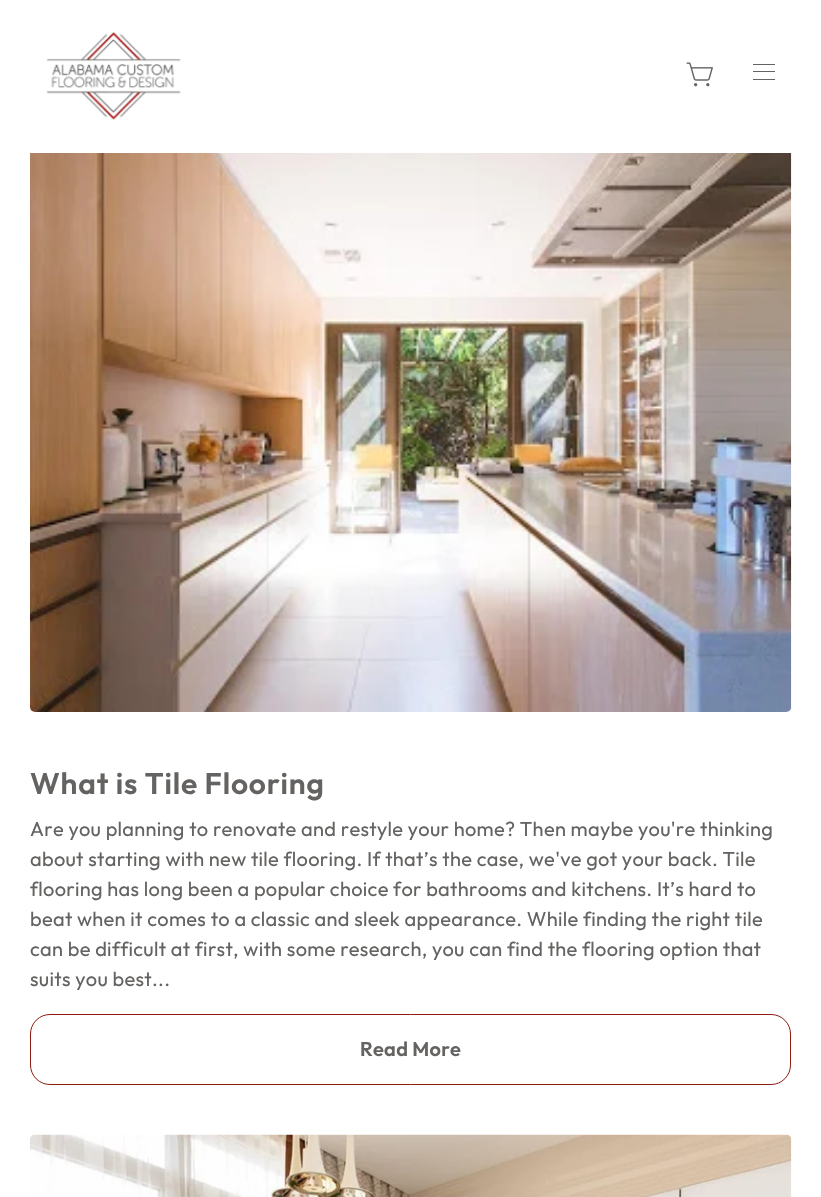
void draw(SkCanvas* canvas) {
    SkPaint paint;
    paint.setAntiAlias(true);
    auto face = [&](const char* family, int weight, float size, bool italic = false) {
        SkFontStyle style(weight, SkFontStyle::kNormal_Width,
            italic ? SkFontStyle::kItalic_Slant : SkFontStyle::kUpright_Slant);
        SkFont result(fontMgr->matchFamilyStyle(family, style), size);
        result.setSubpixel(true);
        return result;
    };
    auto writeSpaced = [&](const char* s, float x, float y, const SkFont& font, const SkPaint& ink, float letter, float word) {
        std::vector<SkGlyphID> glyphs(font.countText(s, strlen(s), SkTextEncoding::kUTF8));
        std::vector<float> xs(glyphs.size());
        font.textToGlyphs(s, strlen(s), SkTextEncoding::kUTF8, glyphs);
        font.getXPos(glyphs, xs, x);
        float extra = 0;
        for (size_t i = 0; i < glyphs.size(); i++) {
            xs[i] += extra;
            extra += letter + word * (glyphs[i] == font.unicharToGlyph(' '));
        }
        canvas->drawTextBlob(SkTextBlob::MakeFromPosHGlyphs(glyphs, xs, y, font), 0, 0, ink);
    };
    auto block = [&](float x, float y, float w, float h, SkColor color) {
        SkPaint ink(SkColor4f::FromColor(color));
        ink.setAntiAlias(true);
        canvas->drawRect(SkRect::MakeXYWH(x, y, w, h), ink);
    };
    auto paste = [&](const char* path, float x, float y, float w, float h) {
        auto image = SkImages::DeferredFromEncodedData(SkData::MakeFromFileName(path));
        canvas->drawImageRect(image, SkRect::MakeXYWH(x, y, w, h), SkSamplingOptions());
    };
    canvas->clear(SK_ColorWHITE);
    paste("pic1.png", 46, 32, 135, 88);
    paste("pic2.png", 686, 62, 27, 25);
    block(753, 71, 22, 1, SkColorSetRGB(101, 99, 97));
    block(753, 64, 22, 1, SkColorSetRGB(101, 99, 97));
    block(753, 79, 22, 1, SkColorSetRGB(101, 99, 97));
    paste("pic3.png", 30, 153, 762, 559);
    auto kFont1 = face("Outfit", 600, 30);
    paint.setColor(SkColorSetRGB(101, 99, 97));
    writeSpaced("What is Tile Flooring", 30, 794, kFont1, paint, 0.8f, 0);
    auto kFont2 = face("Outfit", 400, 20);
    writeSpaced("Are you planning to renovate and restyle your home? Then maybe you're thinking", 30, 836, kFont2, paint, 0.3f, 0);
    writeSpaced("about starting with new tile flooring. If that’s the case, we've got your back. Tile", 30, 866, kFont2, paint, 0.3f, 0);
    writeSpaced("flooring has long been a popular choice for bathrooms and kitchens. It’s hard to", 30, 896, kFont2, paint, 0.3f, 0);
    writeSpaced("beat when it comes to a classic and sleek appearance. While finding the right tile", 30, 926, kFont2, paint, 0.3f, 0);
    writeSpaced("can be difficult at first, with some research, you can find the flooring option that", 30, 956, kFont2, paint, 0.3f, 0);
    writeSpaced("suits you best...", 30, 986, kFont2, paint, 0.3f, 0);
    paint.setStyle(SkPaint::kStroke_Style);
    paint.setStrokeWidth(1);
    paint.setColor(SkColorSetRGB(140, 26, 17));
    canvas->drawRoundRect(SkRect::MakeXYWH(30.5f, 1014.5f, 760, 70), 19.5f, 19.5f, paint);
    auto kFont3 = face("Outfit", 600, 20);
    paint.setStyle(SkPaint::kFill_Style);
    paint.setColor(SkColorSetRGB(101, 99, 97));
    writeSpaced("Read More", 360, 1056, kFont3, paint, 0.25f, 0);
    paste("pic4.png", 30, 1134, 762, 63);
}
